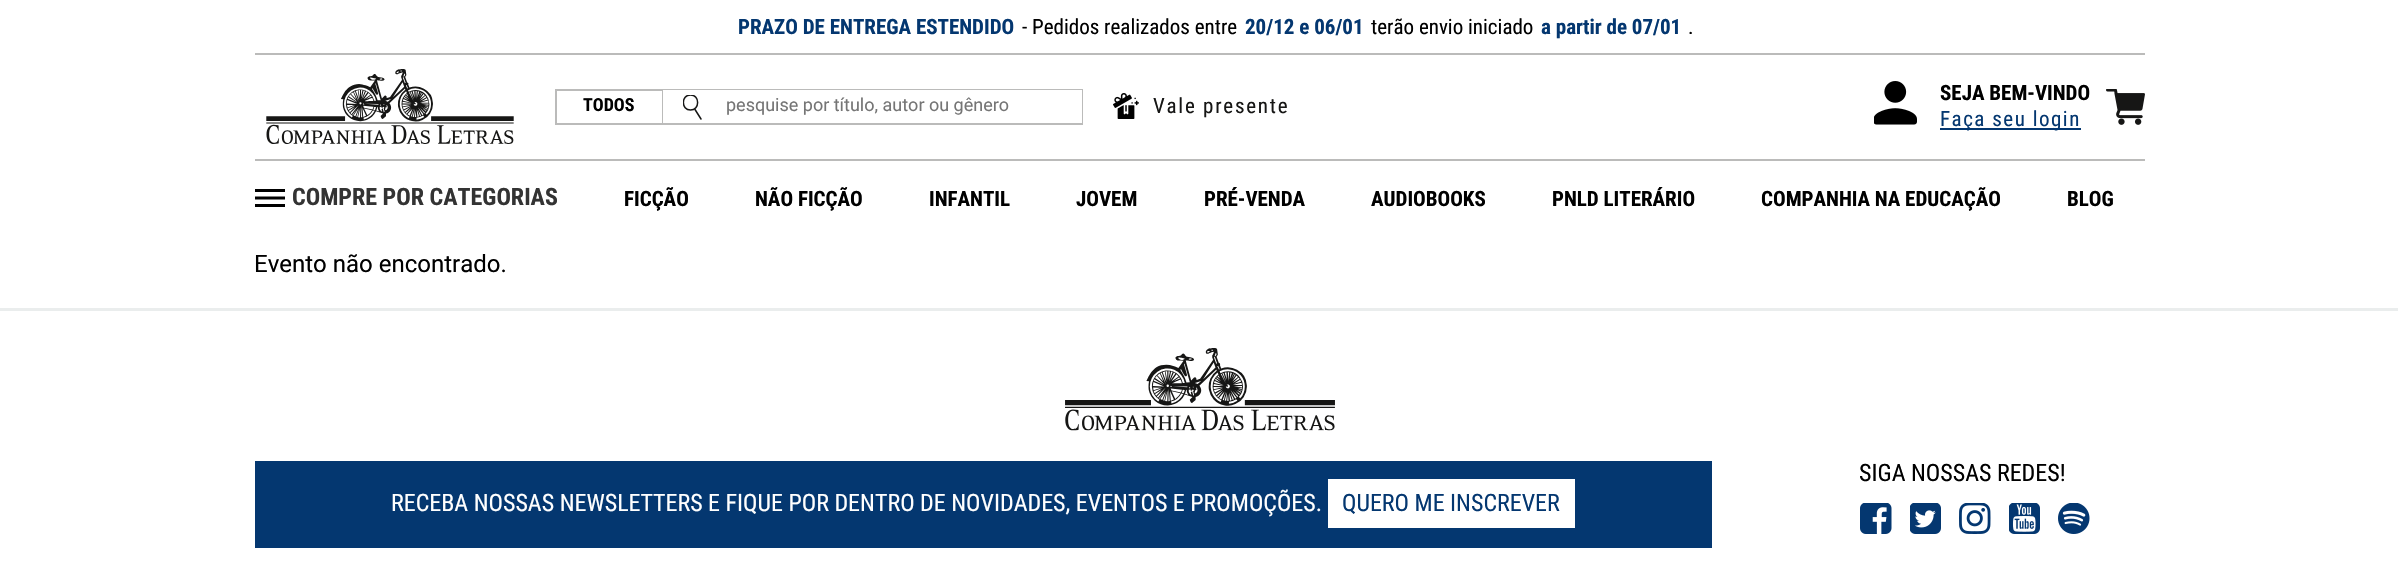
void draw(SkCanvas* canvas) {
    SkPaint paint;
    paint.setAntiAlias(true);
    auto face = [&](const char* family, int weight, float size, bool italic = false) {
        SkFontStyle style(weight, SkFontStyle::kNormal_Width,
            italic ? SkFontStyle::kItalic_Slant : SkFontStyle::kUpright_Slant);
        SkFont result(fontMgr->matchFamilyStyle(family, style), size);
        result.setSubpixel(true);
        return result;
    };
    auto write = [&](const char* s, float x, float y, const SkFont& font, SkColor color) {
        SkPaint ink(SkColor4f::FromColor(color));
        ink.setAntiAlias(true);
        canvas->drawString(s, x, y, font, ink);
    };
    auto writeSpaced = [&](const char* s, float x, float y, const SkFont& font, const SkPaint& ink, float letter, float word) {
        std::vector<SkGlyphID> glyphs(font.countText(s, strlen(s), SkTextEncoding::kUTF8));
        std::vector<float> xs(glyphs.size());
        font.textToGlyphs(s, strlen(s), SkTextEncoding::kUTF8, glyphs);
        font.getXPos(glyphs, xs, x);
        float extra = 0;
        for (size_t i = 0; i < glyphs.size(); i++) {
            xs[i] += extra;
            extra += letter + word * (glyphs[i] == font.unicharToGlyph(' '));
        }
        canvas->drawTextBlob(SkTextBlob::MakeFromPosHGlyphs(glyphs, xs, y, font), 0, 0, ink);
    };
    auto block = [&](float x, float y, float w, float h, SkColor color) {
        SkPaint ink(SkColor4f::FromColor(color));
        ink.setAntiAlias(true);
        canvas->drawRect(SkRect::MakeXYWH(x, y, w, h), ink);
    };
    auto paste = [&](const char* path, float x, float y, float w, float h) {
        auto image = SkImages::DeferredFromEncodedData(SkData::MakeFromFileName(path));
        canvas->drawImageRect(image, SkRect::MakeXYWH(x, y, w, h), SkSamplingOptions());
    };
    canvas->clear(SK_ColorWHITE);
    auto kFont1 = face("Roboto Condensed", 700, 21);
    write("PRAZO DE ENTREGA ESTENDIDO", 738, 34, kFont1, SkColorSetRGB(4, 55, 112));
    auto kFont2 = face("Roboto Condensed", 400, 21);
    write("- Pedidos realizados entre", 1022, 34, kFont2, SK_ColorBLACK);
    write("20/12 e 06/01", 1245, 34, kFont1, SkColorSetRGB(4, 55, 112));
    write("terão envio iniciado", 1371, 34, kFont2, SK_ColorBLACK);
    write("a partir de 07/01", 1541, 34, kFont1, SkColorSetRGB(4, 55, 112));
    write(".", 1688, 34, kFont2, SK_ColorBLACK);
    block(255, 53, 1890, 2, SkColorSetRGB(187, 187, 186));
    block(255, 159, 1890, 2, SkColorSetRGB(187, 187, 186));
    paste("pic1.png", 266, 69, 248, 75);
    paint.setStyle(SkPaint::kStroke_Style);
    paint.setStrokeWidth(2);
    paint.setColor(SkColorSetRGB(187, 187, 186));
    canvas->drawRect(SkRect::MakeXYWH(556, 90, 526, 34), paint);
    block(662, 90, 1, 33, SkColorSetRGB(187, 187, 186));
    auto kFont3 = face("Roboto Condensed", 700, 18);
    write("TODOS", 583, 111, kFont3, SK_ColorBLACK);
    block(663, 90, 60, 1, SK_ColorWHITE);
    canvas->save();
    canvas->clipRect(SkRect::MakeXYWH(683, 95, 19, 24));
    paint.setStrokeWidth(1.5f);
    paint.setColor(SkColorSetRGB(22, 22, 21));
    canvas->drawPath(SkPathBuilder().moveTo(690.5f, 110).cubicTo(700, 110, 700, 95, 690.5f, 95).cubicTo(681, 95, 681, 110, 690.5f, 110).close().detach(), paint);
    canvas->restore();
    paint.setStrokeCap(SkPaint::kRound_Cap);
    canvas->drawPath(SkPathBuilder().moveTo(695, 109.5f).lineTo(701, 119).detach(), paint);
    block(723, 90, 359, 33, SK_ColorWHITE);
    auto kFont4 = face("Roboto", 400, 18);
    write("pesquise por título, autor ou gênero", 726, 111, kFont4, SkColorSetRGB(117, 117, 117));
    paste("pic2.png", 1113, 93, 26, 26);
    paint.setStyle(SkPaint::kFill_Style);
    writeSpaced("Vale presente", 1153, 113, kFont2, paint, 1.75f, 0);
    paste("pic3.png", 1874, 81, 43, 44);
    write("SEJA BEM-VINDO", 1940, 100, kFont1, SK_ColorBLACK);
    block(1940, 128, 141, 2, SkColorSetRGB(4, 55, 112));
    paint.setColor(SkColorSetRGB(4, 55, 112));
    writeSpaced("Faça seu login", 1940, 126, kFont2, paint, 1.5f, 0);
    paste("pic4.png", 2106, 89, 39, 36);
    block(255, 189, 30, 3, SK_ColorBLACK);
    paint.setStyle(SkPaint::kStroke_Style);
    paint.setStrokeWidth(3);
    paint.setStrokeCap(SkPaint::kButt_Cap);
    paint.setColor(SK_ColorBLACK);
    canvas->drawPath(SkPathBuilder().moveTo(285, 198).lineTo(255, 198).detach(), paint);
    block(255, 204, 30, 3, SK_ColorBLACK);
    auto kFont5 = face("Roboto Condensed", 700, 24);
    write("COMPRE POR CATEGORIAS", 292, 205, kFont5, SkColorSetRGB(51, 51, 51));
    write("FICÇÃO", 624, 206, kFont1, SK_ColorBLACK);
    write("NÃO FICÇÃO", 755, 206, kFont1, SK_ColorBLACK);
    write("INFANTIL", 929, 206, kFont1, SK_ColorBLACK);
    write("JOVEM", 1076, 206, kFont1, SK_ColorBLACK);
    write("PRÉ-VENDA", 1204, 206, kFont1, SK_ColorBLACK);
    write("AUDIOBOOKS", 1371, 206, kFont1, SK_ColorBLACK);
    write("PNLD LITERÁRIO", 1552, 206, kFont1, SK_ColorBLACK);
    write("COMPANHIA NA EDUCAÇÃO", 1761, 206, kFont1, SK_ColorBLACK);
    write("BLOG", 2067, 206, kFont1, SK_ColorBLACK);
    auto kFont6 = face("Roboto", 400, 24);
    write("Evento não encontrado.", 254, 272, kFont6, SK_ColorBLACK);
    block(0, 308, 2398, 3, SkColorSetRGB(234, 237, 237));
    paste("pic5.png", 1065, 348, 270, 83);
    auto kFont7 = face("Roboto Condensed", 400, 24);
    write("SIGA NOSSAS REDES!", 1859, 481, kFont7, SK_ColorBLACK);
    paste("pic6.png", 1860, 503, 32, 31);
    paste("pic7.png", 1910, 503, 31, 31);
    paste("pic8.png", 1959, 503, 32, 31);
    paste("pic9.png", 2009, 503, 31, 31);
    paste("pic10.png", 2058, 503, 32, 31);
    block(255, 461, 1457, 87, SkColorSetRGB(4, 55, 112));
    write("RECEBA NOSSAS NEWSLETTERS E FIQUE POR DENTRO DE NOVIDADES, EVENTOS E PROMOÇÕES.", 391, 511, kFont7, SK_ColorWHITE);
    block(1328, 479, 247, 49, SK_ColorWHITE);
    write("QUERO ME INSCREVER", 1342, 511, kFont7, SkColorSetRGB(4, 55, 112));
}
